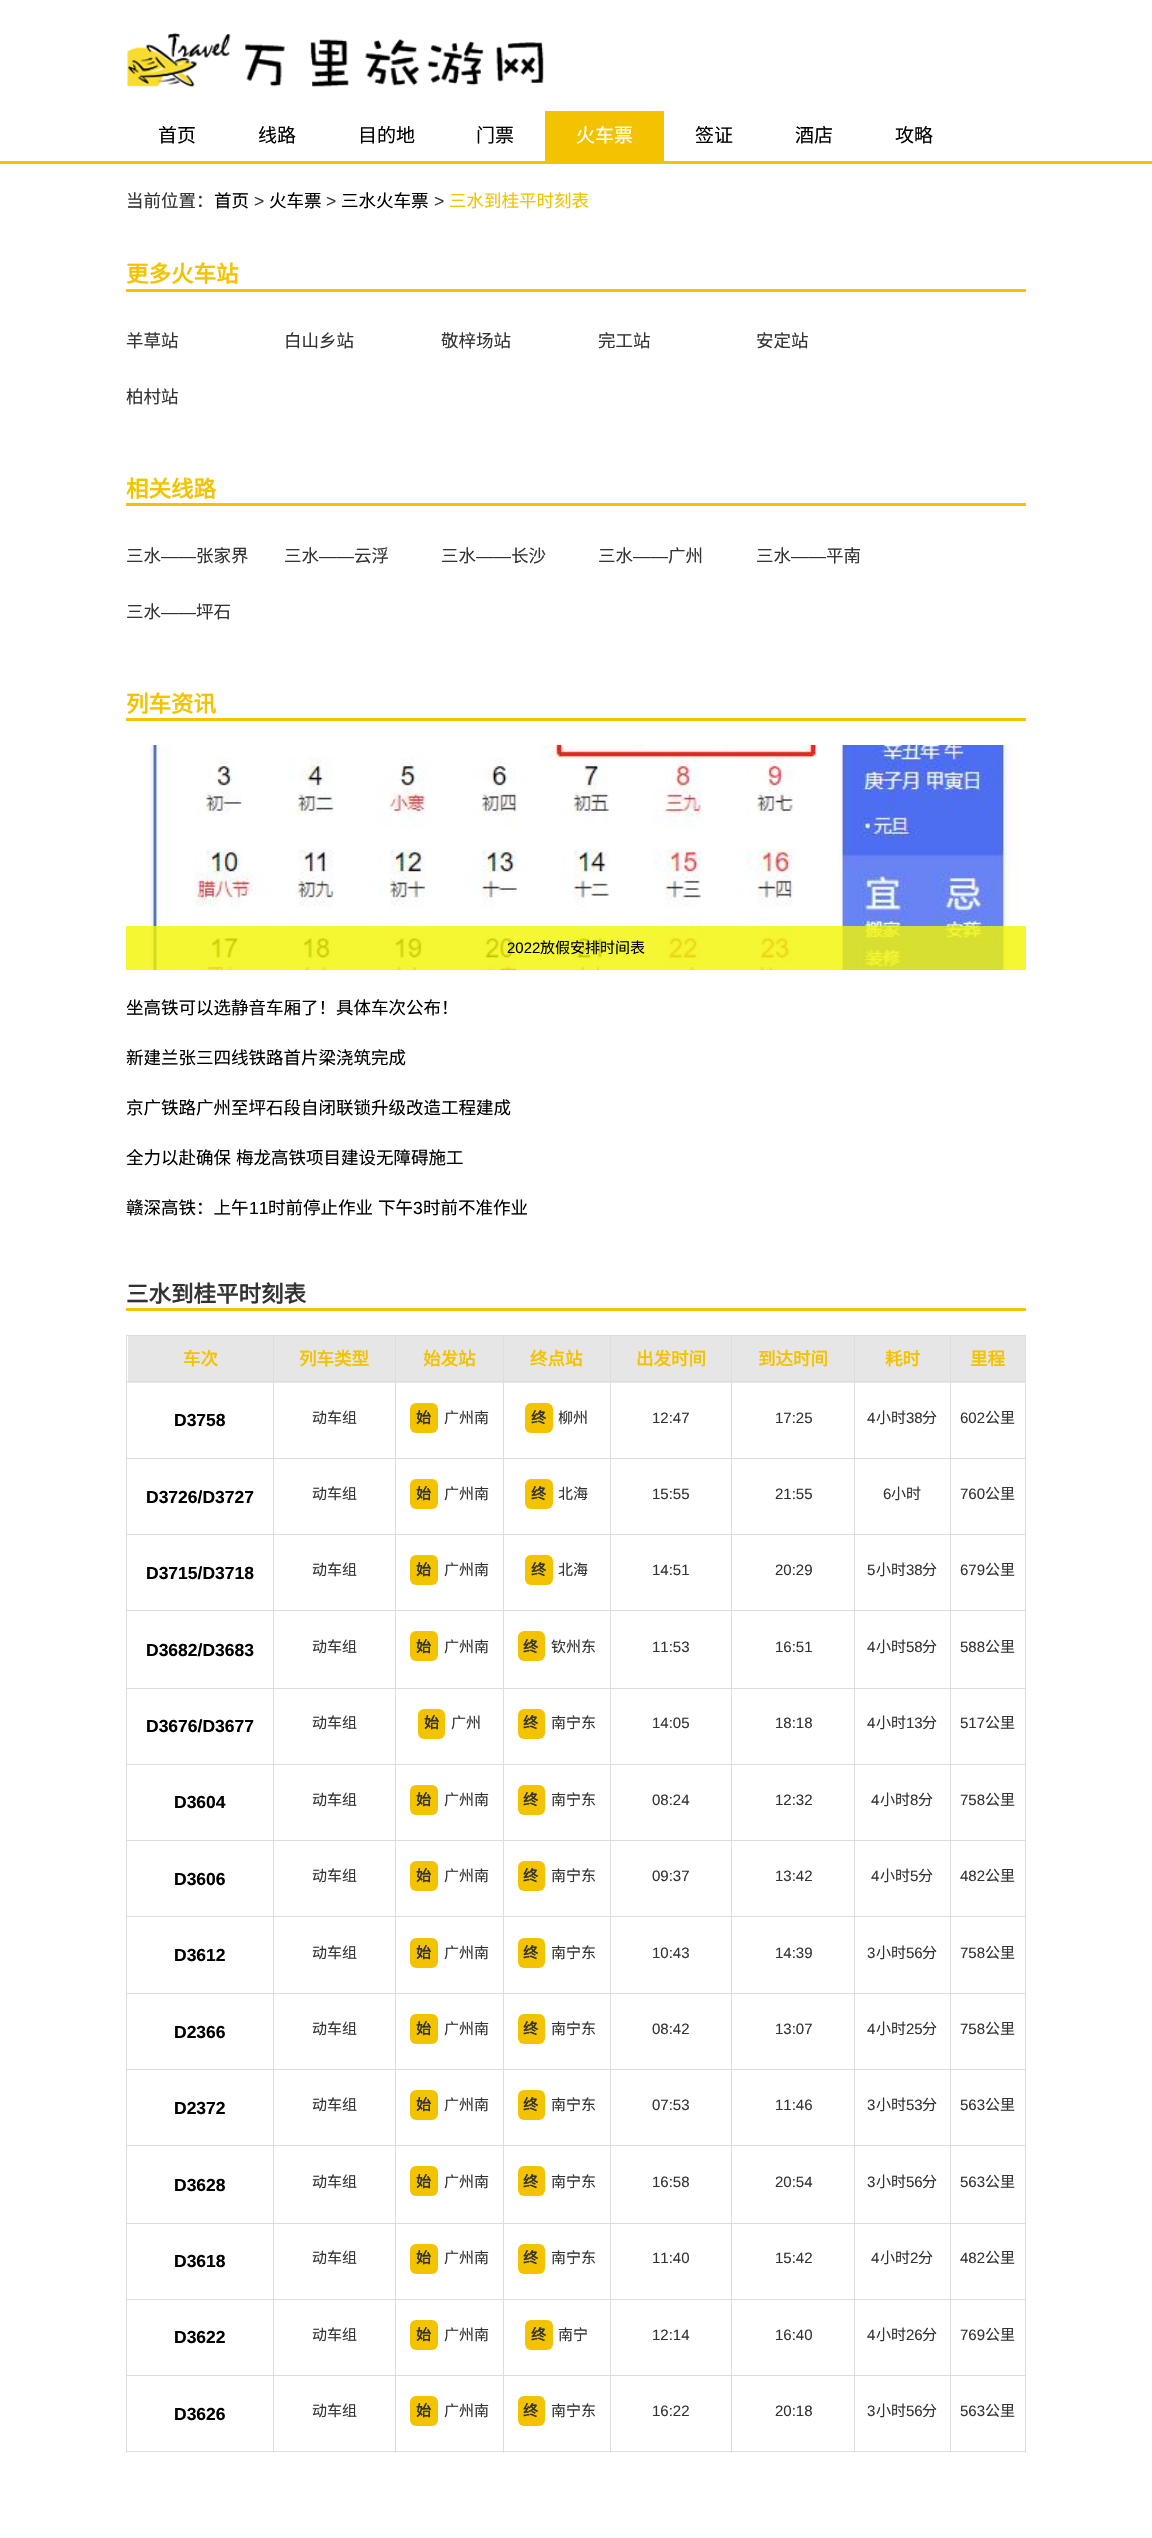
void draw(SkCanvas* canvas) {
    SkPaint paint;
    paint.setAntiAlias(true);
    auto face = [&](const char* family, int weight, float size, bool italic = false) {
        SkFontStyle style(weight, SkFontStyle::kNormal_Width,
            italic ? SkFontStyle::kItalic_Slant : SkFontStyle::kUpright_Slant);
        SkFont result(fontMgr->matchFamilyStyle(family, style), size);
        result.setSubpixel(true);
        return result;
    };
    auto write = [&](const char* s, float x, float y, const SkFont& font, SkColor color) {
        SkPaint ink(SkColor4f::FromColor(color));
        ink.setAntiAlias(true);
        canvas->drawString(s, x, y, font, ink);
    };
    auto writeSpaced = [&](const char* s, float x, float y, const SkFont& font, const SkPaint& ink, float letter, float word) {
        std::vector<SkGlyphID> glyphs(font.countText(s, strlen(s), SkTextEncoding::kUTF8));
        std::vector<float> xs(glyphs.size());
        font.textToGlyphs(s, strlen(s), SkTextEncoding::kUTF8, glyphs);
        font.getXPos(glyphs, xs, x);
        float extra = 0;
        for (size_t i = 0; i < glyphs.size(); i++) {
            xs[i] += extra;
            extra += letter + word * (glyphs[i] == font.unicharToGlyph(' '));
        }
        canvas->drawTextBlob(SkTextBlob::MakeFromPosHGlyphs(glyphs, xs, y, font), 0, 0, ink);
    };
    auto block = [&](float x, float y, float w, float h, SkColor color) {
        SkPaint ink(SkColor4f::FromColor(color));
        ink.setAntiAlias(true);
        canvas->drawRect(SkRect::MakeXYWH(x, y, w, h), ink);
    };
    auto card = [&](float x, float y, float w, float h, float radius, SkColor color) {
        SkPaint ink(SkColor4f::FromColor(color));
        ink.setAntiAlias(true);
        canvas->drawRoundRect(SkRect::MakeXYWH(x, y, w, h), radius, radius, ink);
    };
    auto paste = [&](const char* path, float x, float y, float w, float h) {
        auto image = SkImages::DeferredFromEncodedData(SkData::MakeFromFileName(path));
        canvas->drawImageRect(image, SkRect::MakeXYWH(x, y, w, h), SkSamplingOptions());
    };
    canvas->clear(SK_ColorWHITE);
    paste("pic1.png", 127, 32, 417, 55);
    auto kFont1 = face("Noto Sans CJK SC", 400, 19);
    write("首页", 158, 142, kFont1, SK_ColorBLACK);
    write("线路", 258, 142, kFont1, SK_ColorBLACK);
    write("目的地", 358, 142, kFont1, SK_ColorBLACK);
    write("门票", 476, 142, kFont1, SK_ColorBLACK);
    block(545, 111, 119, 50, SkColorSetRGB(243, 195, 0));
    write("火车票", 576, 142, kFont1, SK_ColorWHITE);
    write("签证", 695, 142, kFont1, SK_ColorBLACK);
    write("酒店", 795, 142, kFont1, SK_ColorBLACK);
    write("攻略", 895, 142, kFont1, SK_ColorBLACK);
    block(0, 161, 1152, 3, SkColorSetRGB(243, 195, 0));
    auto kFont2 = face("Noto Sans CJK SC", 400, 17.5f);
    write("当前位置：", 126, 207, kFont2, SkColorSetRGB(51, 51, 51));
    write("首页", 214, 207, kFont2, SK_ColorBLACK);
    auto kFont3 = face("Liberation Sans", 400, 17.5f);
    write(">", 254, 207, kFont3, SkColorSetRGB(51, 51, 51));
    write("火车票", 269, 207, kFont2, SK_ColorBLACK);
    write(">", 326, 207, kFont3, SkColorSetRGB(51, 51, 51));
    write("三水火车票", 341, 207, kFont2, SK_ColorBLACK);
    write(">", 434, 207, kFont3, SkColorSetRGB(51, 51, 51));
    write("三水到桂平时刻表", 449, 207, kFont2, SkColorSetRGB(243, 195, 0));
    auto kFont4 = face("Noto Sans CJK SC", 700, 22.5f);
    write("更多火车站", 126, 282, kFont4, SkColorSetRGB(243, 195, 0));
    block(126, 289, 900, 3, SkColorSetRGB(243, 195, 0));
    write("羊草站", 126, 347, kFont2, SkColorSetRGB(51, 51, 51));
    write("白山乡站", 284, 347, kFont2, SkColorSetRGB(51, 51, 51));
    write("敬梓场站", 441, 347, kFont2, SkColorSetRGB(51, 51, 51));
    write("完工站", 598, 347, kFont2, SkColorSetRGB(51, 51, 51));
    write("安定站", 756, 347, kFont2, SkColorSetRGB(51, 51, 51));
    write("柏村站", 126, 403, kFont2, SkColorSetRGB(51, 51, 51));
    write("相关线路", 126, 497, kFont4, SkColorSetRGB(243, 195, 0));
    block(126, 503, 900, 3, SkColorSetRGB(243, 195, 0));
    write("三水", 126, 562, kFont2, SkColorSetRGB(51, 51, 51));
    write("——", 161, 562, kFont3, SkColorSetRGB(51, 51, 51));
    write("张家界", 196, 562, kFont2, SkColorSetRGB(51, 51, 51));
    write("三水", 284, 562, kFont2, SkColorSetRGB(51, 51, 51));
    write("——", 319, 562, kFont3, SkColorSetRGB(51, 51, 51));
    write("云浮", 354, 562, kFont2, SkColorSetRGB(51, 51, 51));
    write("三水", 441, 562, kFont2, SkColorSetRGB(51, 51, 51));
    write("——", 476, 562, kFont3, SkColorSetRGB(51, 51, 51));
    write("长沙", 511, 562, kFont2, SkColorSetRGB(51, 51, 51));
    write("三水", 598, 562, kFont2, SkColorSetRGB(51, 51, 51));
    write("——", 633, 562, kFont3, SkColorSetRGB(51, 51, 51));
    write("广州", 668, 562, kFont2, SkColorSetRGB(51, 51, 51));
    write("三水", 756, 562, kFont2, SkColorSetRGB(51, 51, 51));
    write("——", 791, 562, kFont3, SkColorSetRGB(51, 51, 51));
    write("平南", 826, 562, kFont2, SkColorSetRGB(51, 51, 51));
    write("三水", 126, 618, kFont2, SkColorSetRGB(51, 51, 51));
    write("——", 161, 618, kFont3, SkColorSetRGB(51, 51, 51));
    write("坪石", 196, 618, kFont2, SkColorSetRGB(51, 51, 51));
    write("列车资讯", 126, 712, kFont4, SkColorSetRGB(243, 195, 0));
    block(126, 718, 900, 3, SkColorSetRGB(243, 195, 0));
    paste("pic2.png", 149, 745, 870, 225);
    block(126, 926, 900, 44, SkColorSetARGB(204, 243, 245, 0));
    auto kFont5 = face("Liberation Sans", 400, 15);
    write("2022", 507, 953, kFont5, SK_ColorBLACK);
    auto kFont6 = face("Noto Sans CJK SC", 400, 15);
    write("放假安排时间表", 540, 953, kFont6, SK_ColorBLACK);
    write("坐高铁可以选静音车厢了！具体车次公布！", 126, 1014, kFont2, SK_ColorBLACK);
    write("新建兰张三四线铁路首片梁浇筑完成", 126, 1064, kFont2, SK_ColorBLACK);
    write("京广铁路广州至坪石段自闭联锁升级改造工程建成", 126, 1114, kFont2, SK_ColorBLACK);
    paint.setColor(SK_ColorBLACK);
    writeSpaced("全力以赴确保 梅龙高铁项目建设无障碍施工", 126, 1164, kFont2, paint, 0, 1);
    write("赣深高铁：上午", 126, 1214, kFont2, SK_ColorBLACK);
    write("11", 249, 1214, kFont3, SK_ColorBLACK);
    writeSpaced("时前停止作业 下午", 268, 1214, kFont2, paint, 0, 1);
    write("3", 413, 1214, kFont3, SK_ColorBLACK);
    write("时前不准作业", 423, 1214, kFont2, SK_ColorBLACK);
    write("三水到桂平时刻表", 126, 1302, kFont4, SkColorSetRGB(51, 51, 51));
    block(126, 1308, 900, 3, SkColorSetRGB(243, 195, 0));
    block(126, 1335, 900, 1, SkColorSetRGB(221, 221, 221));
    block(1025, 1335, 1, 1118, SkColorSetRGB(221, 221, 221));
    block(126, 2451, 900, 1, SkColorSetRGB(221, 221, 221));
    block(126, 1335, 1, 1118, SkColorSetRGB(221, 221, 221));
    block(128, 1336, 145, 47, SkColorSetRGB(231, 230, 230));
    auto kFont7 = face("Noto Sans CJK SC", 700, 17.5f);
    write("车次", 183, 1365, kFont7, SkColorSetRGB(243, 195, 0));
    block(274, 1336, 121, 47, SkColorSetRGB(231, 230, 230));
    block(396, 1336, 107, 47, SkColorSetRGB(231, 230, 230));
    block(504, 1336, 106, 47, SkColorSetRGB(231, 230, 230));
    block(611, 1336, 243, 47, SkColorSetRGB(231, 230, 230));
    block(855, 1336, 95, 47, SkColorSetRGB(231, 230, 230));
    block(951, 1336, 74, 47, SkColorSetRGB(231, 230, 230));
    block(950, 1381, 76, 1, SkColorSetRGB(221, 221, 221));
    block(950, 1458, 76, 1, SkColorSetRGB(221, 221, 221));
    block(950, 1534, 76, 1, SkColorSetRGB(221, 221, 221));
    block(950, 1610, 76, 1, SkColorSetRGB(221, 221, 221));
    block(950, 1688, 76, 1, SkColorSetRGB(221, 221, 221));
    block(950, 1764, 76, 1, SkColorSetRGB(221, 221, 221));
    block(950, 1840, 76, 1, SkColorSetRGB(221, 221, 221));
    block(950, 1916, 76, 1, SkColorSetRGB(221, 221, 221));
    block(950, 1993, 76, 1, SkColorSetRGB(221, 221, 221));
    block(950, 2069, 76, 1, SkColorSetRGB(221, 221, 221));
    block(950, 2145, 76, 1, SkColorSetRGB(221, 221, 221));
    block(950, 2223, 76, 1, SkColorSetRGB(221, 221, 221));
    block(950, 2299, 76, 1, SkColorSetRGB(221, 221, 221));
    block(950, 2375, 76, 1, SkColorSetRGB(221, 221, 221));
    block(950, 2375, 1, 78, SkColorSetRGB(221, 221, 221));
    block(854, 2375, 97, 1, SkColorSetRGB(221, 221, 221));
    block(950, 2299, 1, 77, SkColorSetRGB(221, 221, 221));
    block(854, 2299, 97, 1, SkColorSetRGB(221, 221, 221));
    block(950, 2223, 1, 77, SkColorSetRGB(221, 221, 221));
    block(854, 2223, 97, 1, SkColorSetRGB(221, 221, 221));
    block(950, 2145, 1, 79, SkColorSetRGB(221, 221, 221));
    block(854, 2145, 97, 1, SkColorSetRGB(221, 221, 221));
    block(950, 2069, 1, 77, SkColorSetRGB(221, 221, 221));
    block(854, 2069, 97, 1, SkColorSetRGB(221, 221, 221));
    block(950, 1993, 1, 77, SkColorSetRGB(221, 221, 221));
    block(854, 1993, 97, 1, SkColorSetRGB(221, 221, 221));
    block(950, 1916, 1, 78, SkColorSetRGB(221, 221, 221));
    block(854, 1916, 97, 1, SkColorSetRGB(221, 221, 221));
    block(950, 1840, 1, 78, SkColorSetRGB(221, 221, 221));
    block(854, 1840, 97, 1, SkColorSetRGB(221, 221, 221));
    block(950, 1764, 1, 77, SkColorSetRGB(221, 221, 221));
    block(854, 1764, 97, 1, SkColorSetRGB(221, 221, 221));
    block(950, 1688, 1, 77, SkColorSetRGB(221, 221, 221));
    block(854, 1688, 97, 1, SkColorSetRGB(221, 221, 221));
    block(950, 1610, 1, 79, SkColorSetRGB(221, 221, 221));
    block(854, 1610, 97, 1, SkColorSetRGB(221, 221, 221));
    block(950, 1534, 1, 77, SkColorSetRGB(221, 221, 221));
    block(854, 1534, 97, 1, SkColorSetRGB(221, 221, 221));
    block(950, 1458, 1, 77, SkColorSetRGB(221, 221, 221));
    block(854, 1458, 97, 1, SkColorSetRGB(221, 221, 221));
    block(950, 1381, 1, 78, SkColorSetRGB(221, 221, 221));
    block(854, 1381, 97, 1, SkColorSetRGB(221, 221, 221));
    block(854, 2375, 1, 78, SkColorSetRGB(221, 221, 221));
    block(731, 2375, 124, 1, SkColorSetRGB(221, 221, 221));
    block(854, 2299, 1, 77, SkColorSetRGB(221, 221, 221));
    block(731, 2299, 124, 1, SkColorSetRGB(221, 221, 221));
    block(854, 2223, 1, 77, SkColorSetRGB(221, 221, 221));
    block(731, 2223, 124, 1, SkColorSetRGB(221, 221, 221));
    block(854, 2145, 1, 79, SkColorSetRGB(221, 221, 221));
    block(731, 2145, 124, 1, SkColorSetRGB(221, 221, 221));
    block(854, 2069, 1, 77, SkColorSetRGB(221, 221, 221));
    block(731, 2069, 124, 1, SkColorSetRGB(221, 221, 221));
    block(854, 1993, 1, 77, SkColorSetRGB(221, 221, 221));
    block(731, 1993, 124, 1, SkColorSetRGB(221, 221, 221));
    block(854, 1916, 1, 78, SkColorSetRGB(221, 221, 221));
    block(731, 1916, 124, 1, SkColorSetRGB(221, 221, 221));
    block(854, 1840, 1, 78, SkColorSetRGB(221, 221, 221));
    block(731, 1840, 124, 1, SkColorSetRGB(221, 221, 221));
    block(854, 1764, 1, 77, SkColorSetRGB(221, 221, 221));
    block(731, 1764, 124, 1, SkColorSetRGB(221, 221, 221));
    block(854, 1688, 1, 77, SkColorSetRGB(221, 221, 221));
    block(731, 1688, 124, 1, SkColorSetRGB(221, 221, 221));
    block(854, 1610, 1, 79, SkColorSetRGB(221, 221, 221));
    block(731, 1610, 124, 1, SkColorSetRGB(221, 221, 221));
    block(854, 1534, 1, 77, SkColorSetRGB(221, 221, 221));
    block(731, 1534, 124, 1, SkColorSetRGB(221, 221, 221));
    block(854, 1458, 1, 77, SkColorSetRGB(221, 221, 221));
    block(731, 1458, 124, 1, SkColorSetRGB(221, 221, 221));
    block(854, 1381, 1, 78, SkColorSetRGB(221, 221, 221));
    block(731, 1381, 124, 1, SkColorSetRGB(221, 221, 221));
    block(731, 2375, 1, 78, SkColorSetRGB(221, 221, 221));
    block(610, 2375, 123, 1, SkColorSetRGB(221, 221, 221));
    block(731, 2299, 1, 77, SkColorSetRGB(221, 221, 221));
    block(610, 2299, 123, 1, SkColorSetRGB(221, 221, 221));
    block(731, 2223, 1, 77, SkColorSetRGB(221, 221, 221));
    block(610, 2223, 123, 1, SkColorSetRGB(221, 221, 221));
    block(731, 2145, 1, 79, SkColorSetRGB(221, 221, 221));
    block(610, 2145, 123, 1, SkColorSetRGB(221, 221, 221));
    block(731, 2069, 1, 77, SkColorSetRGB(221, 221, 221));
    block(610, 2069, 123, 1, SkColorSetRGB(221, 221, 221));
    block(731, 1993, 1, 77, SkColorSetRGB(221, 221, 221));
    block(610, 1993, 123, 1, SkColorSetRGB(221, 221, 221));
    block(731, 1916, 1, 78, SkColorSetRGB(221, 221, 221));
    block(610, 1916, 123, 1, SkColorSetRGB(221, 221, 221));
    block(731, 1840, 1, 78, SkColorSetRGB(221, 221, 221));
    block(610, 1840, 123, 1, SkColorSetRGB(221, 221, 221));
    block(731, 1764, 1, 77, SkColorSetRGB(221, 221, 221));
    block(610, 1764, 123, 1, SkColorSetRGB(221, 221, 221));
    block(731, 1688, 1, 77, SkColorSetRGB(221, 221, 221));
    block(610, 1688, 123, 1, SkColorSetRGB(221, 221, 221));
    block(731, 1610, 1, 79, SkColorSetRGB(221, 221, 221));
    block(610, 1610, 123, 1, SkColorSetRGB(221, 221, 221));
    block(731, 1534, 1, 77, SkColorSetRGB(221, 221, 221));
    block(610, 1534, 123, 1, SkColorSetRGB(221, 221, 221));
    block(731, 1458, 1, 77, SkColorSetRGB(221, 221, 221));
    block(610, 1458, 123, 1, SkColorSetRGB(221, 221, 221));
    block(731, 1381, 1, 78, SkColorSetRGB(221, 221, 221));
    block(610, 1381, 123, 1, SkColorSetRGB(221, 221, 221));
    block(610, 2375, 1, 78, SkColorSetRGB(221, 221, 221));
    block(503, 2375, 108, 1, SkColorSetRGB(221, 221, 221));
    block(610, 2299, 1, 77, SkColorSetRGB(221, 221, 221));
    block(503, 2299, 108, 1, SkColorSetRGB(221, 221, 221));
    block(610, 2223, 1, 77, SkColorSetRGB(221, 221, 221));
    block(503, 2223, 108, 1, SkColorSetRGB(221, 221, 221));
    block(610, 2145, 1, 79, SkColorSetRGB(221, 221, 221));
    block(503, 2145, 108, 1, SkColorSetRGB(221, 221, 221));
    block(610, 2069, 1, 77, SkColorSetRGB(221, 221, 221));
    block(503, 2069, 108, 1, SkColorSetRGB(221, 221, 221));
    block(610, 1993, 1, 77, SkColorSetRGB(221, 221, 221));
    block(503, 1993, 108, 1, SkColorSetRGB(221, 221, 221));
    block(610, 1916, 1, 78, SkColorSetRGB(221, 221, 221));
    block(503, 1916, 108, 1, SkColorSetRGB(221, 221, 221));
    block(610, 1840, 1, 78, SkColorSetRGB(221, 221, 221));
    block(503, 1840, 108, 1, SkColorSetRGB(221, 221, 221));
    block(610, 1764, 1, 77, SkColorSetRGB(221, 221, 221));
    block(503, 1764, 108, 1, SkColorSetRGB(221, 221, 221));
    block(610, 1688, 1, 77, SkColorSetRGB(221, 221, 221));
    block(503, 1688, 108, 1, SkColorSetRGB(221, 221, 221));
    block(610, 1610, 1, 79, SkColorSetRGB(221, 221, 221));
    block(503, 1610, 108, 1, SkColorSetRGB(221, 221, 221));
    block(610, 1534, 1, 77, SkColorSetRGB(221, 221, 221));
    block(503, 1534, 108, 1, SkColorSetRGB(221, 221, 221));
    block(610, 1458, 1, 77, SkColorSetRGB(221, 221, 221));
    block(503, 1458, 108, 1, SkColorSetRGB(221, 221, 221));
    block(610, 1381, 1, 78, SkColorSetRGB(221, 221, 221));
    block(503, 1381, 108, 1, SkColorSetRGB(221, 221, 221));
    block(503, 2375, 1, 78, SkColorSetRGB(221, 221, 221));
    block(395, 2375, 109, 1, SkColorSetRGB(221, 221, 221));
    block(503, 2299, 1, 77, SkColorSetRGB(221, 221, 221));
    block(395, 2299, 109, 1, SkColorSetRGB(221, 221, 221));
    block(503, 2223, 1, 77, SkColorSetRGB(221, 221, 221));
    block(395, 2223, 109, 1, SkColorSetRGB(221, 221, 221));
    block(503, 2145, 1, 79, SkColorSetRGB(221, 221, 221));
    block(395, 2145, 109, 1, SkColorSetRGB(221, 221, 221));
    block(503, 2069, 1, 77, SkColorSetRGB(221, 221, 221));
    block(395, 2069, 109, 1, SkColorSetRGB(221, 221, 221));
    block(503, 1993, 1, 77, SkColorSetRGB(221, 221, 221));
    block(395, 1993, 109, 1, SkColorSetRGB(221, 221, 221));
    block(503, 1916, 1, 78, SkColorSetRGB(221, 221, 221));
    block(395, 1916, 109, 1, SkColorSetRGB(221, 221, 221));
    block(503, 1840, 1, 78, SkColorSetRGB(221, 221, 221));
    block(395, 1840, 109, 1, SkColorSetRGB(221, 221, 221));
    block(503, 1764, 1, 77, SkColorSetRGB(221, 221, 221));
    block(395, 1764, 109, 1, SkColorSetRGB(221, 221, 221));
    block(503, 1688, 1, 77, SkColorSetRGB(221, 221, 221));
    block(395, 1688, 109, 1, SkColorSetRGB(221, 221, 221));
    block(503, 1610, 1, 79, SkColorSetRGB(221, 221, 221));
    block(395, 1610, 109, 1, SkColorSetRGB(221, 221, 221));
    block(503, 1534, 1, 77, SkColorSetRGB(221, 221, 221));
    block(395, 1534, 109, 1, SkColorSetRGB(221, 221, 221));
    block(503, 1458, 1, 77, SkColorSetRGB(221, 221, 221));
    block(395, 1458, 109, 1, SkColorSetRGB(221, 221, 221));
    block(503, 1381, 1, 78, SkColorSetRGB(221, 221, 221));
    block(395, 1381, 109, 1, SkColorSetRGB(221, 221, 221));
    block(395, 2375, 1, 78, SkColorSetRGB(221, 221, 221));
    block(273, 2375, 123, 1, SkColorSetRGB(221, 221, 221));
    block(395, 2299, 1, 77, SkColorSetRGB(221, 221, 221));
    block(273, 2299, 123, 1, SkColorSetRGB(221, 221, 221));
    block(395, 2223, 1, 77, SkColorSetRGB(221, 221, 221));
    block(273, 2223, 123, 1, SkColorSetRGB(221, 221, 221));
    block(395, 2145, 1, 79, SkColorSetRGB(221, 221, 221));
    block(273, 2145, 123, 1, SkColorSetRGB(221, 221, 221));
    block(395, 2069, 1, 77, SkColorSetRGB(221, 221, 221));
    block(273, 2069, 123, 1, SkColorSetRGB(221, 221, 221));
    block(395, 1993, 1, 77, SkColorSetRGB(221, 221, 221));
    block(273, 1993, 123, 1, SkColorSetRGB(221, 221, 221));
    block(395, 1916, 1, 78, SkColorSetRGB(221, 221, 221));
    block(273, 1916, 123, 1, SkColorSetRGB(221, 221, 221));
    block(395, 1840, 1, 78, SkColorSetRGB(221, 221, 221));
    block(273, 1840, 123, 1, SkColorSetRGB(221, 221, 221));
    block(395, 1764, 1, 77, SkColorSetRGB(221, 221, 221));
    block(273, 1764, 123, 1, SkColorSetRGB(221, 221, 221));
    block(395, 1688, 1, 77, SkColorSetRGB(221, 221, 221));
    block(273, 1688, 123, 1, SkColorSetRGB(221, 221, 221));
    block(395, 1610, 1, 79, SkColorSetRGB(221, 221, 221));
    block(273, 1610, 123, 1, SkColorSetRGB(221, 221, 221));
    block(395, 1534, 1, 77, SkColorSetRGB(221, 221, 221));
    block(273, 1534, 123, 1, SkColorSetRGB(221, 221, 221));
    block(395, 1458, 1, 77, SkColorSetRGB(221, 221, 221));
    block(273, 1458, 123, 1, SkColorSetRGB(221, 221, 221));
    block(395, 1381, 1, 78, SkColorSetRGB(221, 221, 221));
    block(273, 1381, 123, 1, SkColorSetRGB(221, 221, 221));
    block(273, 2375, 1, 78, SkColorSetRGB(221, 221, 221));
    block(126, 2375, 148, 1, SkColorSetRGB(221, 221, 221));
    block(273, 2299, 1, 77, SkColorSetRGB(221, 221, 221));
    block(126, 2299, 148, 1, SkColorSetRGB(221, 221, 221));
    block(273, 2223, 1, 77, SkColorSetRGB(221, 221, 221));
    block(126, 2223, 148, 1, SkColorSetRGB(221, 221, 221));
    block(273, 2145, 1, 79, SkColorSetRGB(221, 221, 221));
    block(126, 2145, 148, 1, SkColorSetRGB(221, 221, 221));
    block(273, 2069, 1, 77, SkColorSetRGB(221, 221, 221));
    block(126, 2069, 148, 1, SkColorSetRGB(221, 221, 221));
    block(273, 1993, 1, 77, SkColorSetRGB(221, 221, 221));
    block(126, 1993, 148, 1, SkColorSetRGB(221, 221, 221));
    block(273, 1916, 1, 78, SkColorSetRGB(221, 221, 221));
    block(126, 1916, 148, 1, SkColorSetRGB(221, 221, 221));
    block(273, 1840, 1, 78, SkColorSetRGB(221, 221, 221));
    block(126, 1840, 148, 1, SkColorSetRGB(221, 221, 221));
    block(273, 1764, 1, 77, SkColorSetRGB(221, 221, 221));
    block(126, 1764, 148, 1, SkColorSetRGB(221, 221, 221));
    block(273, 1688, 1, 77, SkColorSetRGB(221, 221, 221));
    block(126, 1688, 148, 1, SkColorSetRGB(221, 221, 221));
    block(273, 1610, 1, 79, SkColorSetRGB(221, 221, 221));
    block(126, 1610, 148, 1, SkColorSetRGB(221, 221, 221));
    block(273, 1534, 1, 77, SkColorSetRGB(221, 221, 221));
    block(126, 1534, 148, 1, SkColorSetRGB(221, 221, 221));
    block(273, 1458, 1, 77, SkColorSetRGB(221, 221, 221));
    block(126, 1458, 148, 1, SkColorSetRGB(221, 221, 221));
    block(273, 1381, 1, 78, SkColorSetRGB(221, 221, 221));
    block(126, 1381, 148, 1, SkColorSetRGB(221, 221, 221));
    block(273, 1335, 1, 48, SkColorSetRGB(221, 221, 221));
    write("列车类型", 299, 1365, kFont7, SkColorSetRGB(243, 195, 0));
    block(395, 1335, 1, 48, SkColorSetRGB(221, 221, 221));
    write("始发站", 423, 1365, kFont7, SkColorSetRGB(243, 195, 0));
    block(503, 1335, 1, 48, SkColorSetRGB(221, 221, 221));
    write("终点站", 530, 1365, kFont7, SkColorSetRGB(243, 195, 0));
    block(610, 1335, 1, 48, SkColorSetRGB(221, 221, 221));
    write("出发时间", 636, 1365, kFont7, SkColorSetRGB(243, 195, 0));
    block(731, 1335, 1, 48, SkColorSetRGB(221, 221, 221));
    write("到达时间", 758, 1365, kFont7, SkColorSetRGB(243, 195, 0));
    block(854, 1335, 1, 48, SkColorSetRGB(221, 221, 221));
    write("耗时", 885, 1365, kFont7, SkColorSetRGB(243, 195, 0));
    block(950, 1335, 1, 48, SkColorSetRGB(221, 221, 221));
    write("里程", 970, 1365, kFont7, SkColorSetRGB(243, 195, 0));
    auto kFont8 = face("Liberation Sans", 700, 17.5f);
    write("D3758", 174, 1426, kFont8, SK_ColorBLACK);
    write("动车组", 312, 1423, kFont6, SkColorSetRGB(51, 51, 51));
    card(410, 1403, 28, 30, 6, SkColorSetRGB(243, 195, 0));
    auto kFont9 = face("Noto Sans CJK SC", 700, 15);
    write("始", 416, 1423, kFont9, SkColorSetRGB(51, 51, 51));
    write("广州南", 444, 1423, kFont6, SkColorSetRGB(51, 51, 51));
    card(525, 1403, 28, 30, 6, SkColorSetRGB(243, 195, 0));
    write("终", 531, 1423, kFont9, SkColorSetRGB(51, 51, 51));
    write("柳州", 558, 1423, kFont6, SkColorSetRGB(51, 51, 51));
    write("12:47", 652, 1423, kFont5, SkColorSetRGB(51, 51, 51));
    write("17:25", 775, 1423, kFont5, SkColorSetRGB(51, 51, 51));
    write("4", 867, 1423, kFont5, SkColorSetRGB(51, 51, 51));
    write("小时", 876, 1423, kFont6, SkColorSetRGB(51, 51, 51));
    write("38", 906, 1423, kFont5, SkColorSetRGB(51, 51, 51));
    write("分", 922, 1423, kFont6, SkColorSetRGB(51, 51, 51));
    write("602", 960, 1423, kFont5, SkColorSetRGB(51, 51, 51));
    write("公里", 985, 1423, kFont6, SkColorSetRGB(51, 51, 51));
    write("D3726/D3727", 146, 1503, kFont8, SK_ColorBLACK);
    write("动车组", 312, 1499, kFont6, SkColorSetRGB(51, 51, 51));
    card(410, 1479, 28, 30, 6, SkColorSetRGB(243, 195, 0));
    write("始", 416, 1499, kFont9, SkColorSetRGB(51, 51, 51));
    write("广州南", 444, 1499, kFont6, SkColorSetRGB(51, 51, 51));
    card(525, 1479, 28, 30, 6, SkColorSetRGB(243, 195, 0));
    write("终", 531, 1499, kFont9, SkColorSetRGB(51, 51, 51));
    write("北海", 558, 1499, kFont6, SkColorSetRGB(51, 51, 51));
    write("15:55", 652, 1499, kFont5, SkColorSetRGB(51, 51, 51));
    write("21:55", 775, 1499, kFont5, SkColorSetRGB(51, 51, 51));
    write("6", 883, 1499, kFont5, SkColorSetRGB(51, 51, 51));
    write("小时", 891, 1499, kFont6, SkColorSetRGB(51, 51, 51));
    write("760", 960, 1499, kFont5, SkColorSetRGB(51, 51, 51));
    write("公里", 985, 1499, kFont6, SkColorSetRGB(51, 51, 51));
    write("D3715/D3718", 146, 1579, kFont8, SK_ColorBLACK);
    write("动车组", 312, 1575, kFont6, SkColorSetRGB(51, 51, 51));
    card(410, 1555, 28, 30, 6, SkColorSetRGB(243, 195, 0));
    write("始", 416, 1575, kFont9, SkColorSetRGB(51, 51, 51));
    write("广州南", 444, 1575, kFont6, SkColorSetRGB(51, 51, 51));
    card(525, 1555, 28, 30, 6, SkColorSetRGB(243, 195, 0));
    write("终", 531, 1575, kFont9, SkColorSetRGB(51, 51, 51));
    write("北海", 558, 1575, kFont6, SkColorSetRGB(51, 51, 51));
    write("14:51", 652, 1575, kFont5, SkColorSetRGB(51, 51, 51));
    write("20:29", 775, 1575, kFont5, SkColorSetRGB(51, 51, 51));
    write("5", 867, 1575, kFont5, SkColorSetRGB(51, 51, 51));
    write("小时", 876, 1575, kFont6, SkColorSetRGB(51, 51, 51));
    write("38", 906, 1575, kFont5, SkColorSetRGB(51, 51, 51));
    write("分", 922, 1575, kFont6, SkColorSetRGB(51, 51, 51));
    write("679", 960, 1575, kFont5, SkColorSetRGB(51, 51, 51));
    write("公里", 985, 1575, kFont6, SkColorSetRGB(51, 51, 51));
    write("D3682/D3683", 146, 1656, kFont8, SK_ColorBLACK);
    write("动车组", 312, 1652, kFont6, SkColorSetRGB(51, 51, 51));
    card(410, 1631, 28, 30, 6, SkColorSetRGB(243, 195, 0));
    write("始", 416, 1652, kFont9, SkColorSetRGB(51, 51, 51));
    write("广州南", 444, 1652, kFont6, SkColorSetRGB(51, 51, 51));
    card(518, 1631, 27, 30, 6, SkColorSetRGB(243, 195, 0));
    write("终", 523, 1652, kFont9, SkColorSetRGB(51, 51, 51));
    write("钦州东", 551, 1652, kFont6, SkColorSetRGB(51, 51, 51));
    write("11:53", 652, 1652, kFont5, SkColorSetRGB(51, 51, 51));
    write("16:51", 775, 1652, kFont5, SkColorSetRGB(51, 51, 51));
    write("4", 867, 1652, kFont5, SkColorSetRGB(51, 51, 51));
    write("小时", 876, 1652, kFont6, SkColorSetRGB(51, 51, 51));
    write("58", 906, 1652, kFont5, SkColorSetRGB(51, 51, 51));
    write("分", 922, 1652, kFont6, SkColorSetRGB(51, 51, 51));
    write("588", 960, 1652, kFont5, SkColorSetRGB(51, 51, 51));
    write("公里", 985, 1652, kFont6, SkColorSetRGB(51, 51, 51));
    write("D3676/D3677", 146, 1732, kFont8, SK_ColorBLACK);
    write("动车组", 312, 1728, kFont6, SkColorSetRGB(51, 51, 51));
    card(418, 1709, 27, 30, 6, SkColorSetRGB(243, 195, 0));
    write("始", 424, 1728, kFont9, SkColorSetRGB(51, 51, 51));
    write("广州", 451, 1728, kFont6, SkColorSetRGB(51, 51, 51));
    card(518, 1709, 27, 30, 6, SkColorSetRGB(243, 195, 0));
    write("终", 523, 1728, kFont9, SkColorSetRGB(51, 51, 51));
    write("南宁东", 551, 1728, kFont6, SkColorSetRGB(51, 51, 51));
    write("14:05", 652, 1728, kFont5, SkColorSetRGB(51, 51, 51));
    write("18:18", 775, 1728, kFont5, SkColorSetRGB(51, 51, 51));
    write("4", 867, 1728, kFont5, SkColorSetRGB(51, 51, 51));
    write("小时", 876, 1728, kFont6, SkColorSetRGB(51, 51, 51));
    write("13", 906, 1728, kFont5, SkColorSetRGB(51, 51, 51));
    write("分", 922, 1728, kFont6, SkColorSetRGB(51, 51, 51));
    write("517", 960, 1728, kFont5, SkColorSetRGB(51, 51, 51));
    write("公里", 985, 1728, kFont6, SkColorSetRGB(51, 51, 51));
    write("D3604", 174, 1808, kFont8, SK_ColorBLACK);
    write("动车组", 312, 1805, kFont6, SkColorSetRGB(51, 51, 51));
    card(410, 1785, 28, 30, 6, SkColorSetRGB(243, 195, 0));
    write("始", 416, 1805, kFont9, SkColorSetRGB(51, 51, 51));
    write("广州南", 444, 1805, kFont6, SkColorSetRGB(51, 51, 51));
    card(518, 1785, 27, 30, 6, SkColorSetRGB(243, 195, 0));
    write("终", 523, 1805, kFont9, SkColorSetRGB(51, 51, 51));
    write("南宁东", 551, 1805, kFont6, SkColorSetRGB(51, 51, 51));
    write("08:24", 652, 1805, kFont5, SkColorSetRGB(51, 51, 51));
    write("12:32", 775, 1805, kFont5, SkColorSetRGB(51, 51, 51));
    write("4", 871, 1805, kFont5, SkColorSetRGB(51, 51, 51));
    write("小时", 880, 1805, kFont6, SkColorSetRGB(51, 51, 51));
    write("8", 910, 1805, kFont5, SkColorSetRGB(51, 51, 51));
    write("分", 918, 1805, kFont6, SkColorSetRGB(51, 51, 51));
    write("758", 960, 1805, kFont5, SkColorSetRGB(51, 51, 51));
    write("公里", 985, 1805, kFont6, SkColorSetRGB(51, 51, 51));
    write("D3606", 174, 1885, kFont8, SK_ColorBLACK);
    write("动车组", 312, 1881, kFont6, SkColorSetRGB(51, 51, 51));
    card(410, 1861, 28, 30, 6, SkColorSetRGB(243, 195, 0));
    write("始", 416, 1881, kFont9, SkColorSetRGB(51, 51, 51));
    write("广州南", 444, 1881, kFont6, SkColorSetRGB(51, 51, 51));
    card(518, 1861, 27, 30, 6, SkColorSetRGB(243, 195, 0));
    write("终", 523, 1881, kFont9, SkColorSetRGB(51, 51, 51));
    write("南宁东", 551, 1881, kFont6, SkColorSetRGB(51, 51, 51));
    write("09:37", 652, 1881, kFont5, SkColorSetRGB(51, 51, 51));
    write("13:42", 775, 1881, kFont5, SkColorSetRGB(51, 51, 51));
    write("4", 871, 1881, kFont5, SkColorSetRGB(51, 51, 51));
    write("小时", 880, 1881, kFont6, SkColorSetRGB(51, 51, 51));
    write("5", 910, 1881, kFont5, SkColorSetRGB(51, 51, 51));
    write("分", 918, 1881, kFont6, SkColorSetRGB(51, 51, 51));
    write("482", 960, 1881, kFont5, SkColorSetRGB(51, 51, 51));
    write("公里", 985, 1881, kFont6, SkColorSetRGB(51, 51, 51));
    write("D3612", 174, 1961, kFont8, SK_ColorBLACK);
    write("动车组", 312, 1958, kFont6, SkColorSetRGB(51, 51, 51));
    card(410, 1938, 28, 30, 6, SkColorSetRGB(243, 195, 0));
    write("始", 416, 1958, kFont9, SkColorSetRGB(51, 51, 51));
    write("广州南", 444, 1958, kFont6, SkColorSetRGB(51, 51, 51));
    card(518, 1938, 27, 30, 6, SkColorSetRGB(243, 195, 0));
    write("终", 523, 1958, kFont9, SkColorSetRGB(51, 51, 51));
    write("南宁东", 551, 1958, kFont6, SkColorSetRGB(51, 51, 51));
    write("10:43", 652, 1958, kFont5, SkColorSetRGB(51, 51, 51));
    write("14:39", 775, 1958, kFont5, SkColorSetRGB(51, 51, 51));
    write("3", 867, 1958, kFont5, SkColorSetRGB(51, 51, 51));
    write("小时", 876, 1958, kFont6, SkColorSetRGB(51, 51, 51));
    write("56", 906, 1958, kFont5, SkColorSetRGB(51, 51, 51));
    write("分", 922, 1958, kFont6, SkColorSetRGB(51, 51, 51));
    write("758", 960, 1958, kFont5, SkColorSetRGB(51, 51, 51));
    write("公里", 985, 1958, kFont6, SkColorSetRGB(51, 51, 51));
    write("D2366", 174, 2038, kFont8, SK_ColorBLACK);
    write("动车组", 312, 2034, kFont6, SkColorSetRGB(51, 51, 51));
    card(410, 2014, 28, 30, 6, SkColorSetRGB(243, 195, 0));
    write("始", 416, 2034, kFont9, SkColorSetRGB(51, 51, 51));
    write("广州南", 444, 2034, kFont6, SkColorSetRGB(51, 51, 51));
    card(518, 2014, 27, 30, 6, SkColorSetRGB(243, 195, 0));
    write("终", 523, 2034, kFont9, SkColorSetRGB(51, 51, 51));
    write("南宁东", 551, 2034, kFont6, SkColorSetRGB(51, 51, 51));
    write("08:42", 652, 2034, kFont5, SkColorSetRGB(51, 51, 51));
    write("13:07", 775, 2034, kFont5, SkColorSetRGB(51, 51, 51));
    write("4", 867, 2034, kFont5, SkColorSetRGB(51, 51, 51));
    write("小时", 876, 2034, kFont6, SkColorSetRGB(51, 51, 51));
    write("25", 906, 2034, kFont5, SkColorSetRGB(51, 51, 51));
    write("分", 922, 2034, kFont6, SkColorSetRGB(51, 51, 51));
    write("758", 960, 2034, kFont5, SkColorSetRGB(51, 51, 51));
    write("公里", 985, 2034, kFont6, SkColorSetRGB(51, 51, 51));
    write("D2372", 174, 2114, kFont8, SK_ColorBLACK);
    write("动车组", 312, 2110, kFont6, SkColorSetRGB(51, 51, 51));
    card(410, 2090, 28, 30, 6, SkColorSetRGB(243, 195, 0));
    write("始", 416, 2110, kFont9, SkColorSetRGB(51, 51, 51));
    write("广州南", 444, 2110, kFont6, SkColorSetRGB(51, 51, 51));
    card(518, 2090, 27, 30, 6, SkColorSetRGB(243, 195, 0));
    write("终", 523, 2110, kFont9, SkColorSetRGB(51, 51, 51));
    write("南宁东", 551, 2110, kFont6, SkColorSetRGB(51, 51, 51));
    write("07:53", 652, 2110, kFont5, SkColorSetRGB(51, 51, 51));
    write("11:46", 775, 2110, kFont5, SkColorSetRGB(51, 51, 51));
    write("3", 867, 2110, kFont5, SkColorSetRGB(51, 51, 51));
    write("小时", 876, 2110, kFont6, SkColorSetRGB(51, 51, 51));
    write("53", 906, 2110, kFont5, SkColorSetRGB(51, 51, 51));
    write("分", 922, 2110, kFont6, SkColorSetRGB(51, 51, 51));
    write("563", 960, 2110, kFont5, SkColorSetRGB(51, 51, 51));
    write("公里", 985, 2110, kFont6, SkColorSetRGB(51, 51, 51));
    write("D3628", 174, 2191, kFont8, SK_ColorBLACK);
    write("动车组", 312, 2187, kFont6, SkColorSetRGB(51, 51, 51));
    card(410, 2166, 28, 30, 6, SkColorSetRGB(243, 195, 0));
    write("始", 416, 2187, kFont9, SkColorSetRGB(51, 51, 51));
    write("广州南", 444, 2187, kFont6, SkColorSetRGB(51, 51, 51));
    card(518, 2166, 27, 30, 6, SkColorSetRGB(243, 195, 0));
    write("终", 523, 2187, kFont9, SkColorSetRGB(51, 51, 51));
    write("南宁东", 551, 2187, kFont6, SkColorSetRGB(51, 51, 51));
    write("16:58", 652, 2187, kFont5, SkColorSetRGB(51, 51, 51));
    write("20:54", 775, 2187, kFont5, SkColorSetRGB(51, 51, 51));
    write("3", 867, 2187, kFont5, SkColorSetRGB(51, 51, 51));
    write("小时", 876, 2187, kFont6, SkColorSetRGB(51, 51, 51));
    write("56", 906, 2187, kFont5, SkColorSetRGB(51, 51, 51));
    write("分", 922, 2187, kFont6, SkColorSetRGB(51, 51, 51));
    write("563", 960, 2187, kFont5, SkColorSetRGB(51, 51, 51));
    write("公里", 985, 2187, kFont6, SkColorSetRGB(51, 51, 51));
    write("D3618", 174, 2267, kFont8, SK_ColorBLACK);
    write("动车组", 312, 2263, kFont6, SkColorSetRGB(51, 51, 51));
    card(410, 2244, 28, 30, 6, SkColorSetRGB(243, 195, 0));
    write("始", 416, 2263, kFont9, SkColorSetRGB(51, 51, 51));
    write("广州南", 444, 2263, kFont6, SkColorSetRGB(51, 51, 51));
    card(518, 2244, 27, 30, 6, SkColorSetRGB(243, 195, 0));
    write("终", 523, 2263, kFont9, SkColorSetRGB(51, 51, 51));
    write("南宁东", 551, 2263, kFont6, SkColorSetRGB(51, 51, 51));
    write("11:40", 652, 2263, kFont5, SkColorSetRGB(51, 51, 51));
    write("15:42", 775, 2263, kFont5, SkColorSetRGB(51, 51, 51));
    write("4", 871, 2263, kFont5, SkColorSetRGB(51, 51, 51));
    write("小时", 880, 2263, kFont6, SkColorSetRGB(51, 51, 51));
    write("2", 910, 2263, kFont5, SkColorSetRGB(51, 51, 51));
    write("分", 918, 2263, kFont6, SkColorSetRGB(51, 51, 51));
    write("482", 960, 2263, kFont5, SkColorSetRGB(51, 51, 51));
    write("公里", 985, 2263, kFont6, SkColorSetRGB(51, 51, 51));
    write("D3622", 174, 2343, kFont8, SK_ColorBLACK);
    write("动车组", 312, 2340, kFont6, SkColorSetRGB(51, 51, 51));
    card(410, 2320, 28, 30, 6, SkColorSetRGB(243, 195, 0));
    write("始", 416, 2340, kFont9, SkColorSetRGB(51, 51, 51));
    write("广州南", 444, 2340, kFont6, SkColorSetRGB(51, 51, 51));
    card(525, 2320, 28, 30, 6, SkColorSetRGB(243, 195, 0));
    write("终", 531, 2340, kFont9, SkColorSetRGB(51, 51, 51));
    write("南宁", 558, 2340, kFont6, SkColorSetRGB(51, 51, 51));
    write("12:14", 652, 2340, kFont5, SkColorSetRGB(51, 51, 51));
    write("16:40", 775, 2340, kFont5, SkColorSetRGB(51, 51, 51));
    write("4", 867, 2340, kFont5, SkColorSetRGB(51, 51, 51));
    write("小时", 876, 2340, kFont6, SkColorSetRGB(51, 51, 51));
    write("26", 906, 2340, kFont5, SkColorSetRGB(51, 51, 51));
    write("分", 922, 2340, kFont6, SkColorSetRGB(51, 51, 51));
    write("769", 960, 2340, kFont5, SkColorSetRGB(51, 51, 51));
    write("公里", 985, 2340, kFont6, SkColorSetRGB(51, 51, 51));
    write("D3626", 174, 2420, kFont8, SK_ColorBLACK);
    write("动车组", 312, 2416, kFont6, SkColorSetRGB(51, 51, 51));
    card(410, 2396, 28, 30, 6, SkColorSetRGB(243, 195, 0));
    write("始", 416, 2416, kFont9, SkColorSetRGB(51, 51, 51));
    write("广州南", 444, 2416, kFont6, SkColorSetRGB(51, 51, 51));
    card(518, 2396, 27, 30, 6, SkColorSetRGB(243, 195, 0));
    write("终", 523, 2416, kFont9, SkColorSetRGB(51, 51, 51));
    write("南宁东", 551, 2416, kFont6, SkColorSetRGB(51, 51, 51));
    write("16:22", 652, 2416, kFont5, SkColorSetRGB(51, 51, 51));
    write("20:18", 775, 2416, kFont5, SkColorSetRGB(51, 51, 51));
    write("3", 867, 2416, kFont5, SkColorSetRGB(51, 51, 51));
    write("小时", 876, 2416, kFont6, SkColorSetRGB(51, 51, 51));
    write("56", 906, 2416, kFont5, SkColorSetRGB(51, 51, 51));
    write("分", 922, 2416, kFont6, SkColorSetRGB(51, 51, 51));
    write("563", 960, 2416, kFont5, SkColorSetRGB(51, 51, 51));
    write("公里", 985, 2416, kFont6, SkColorSetRGB(51, 51, 51));
}
